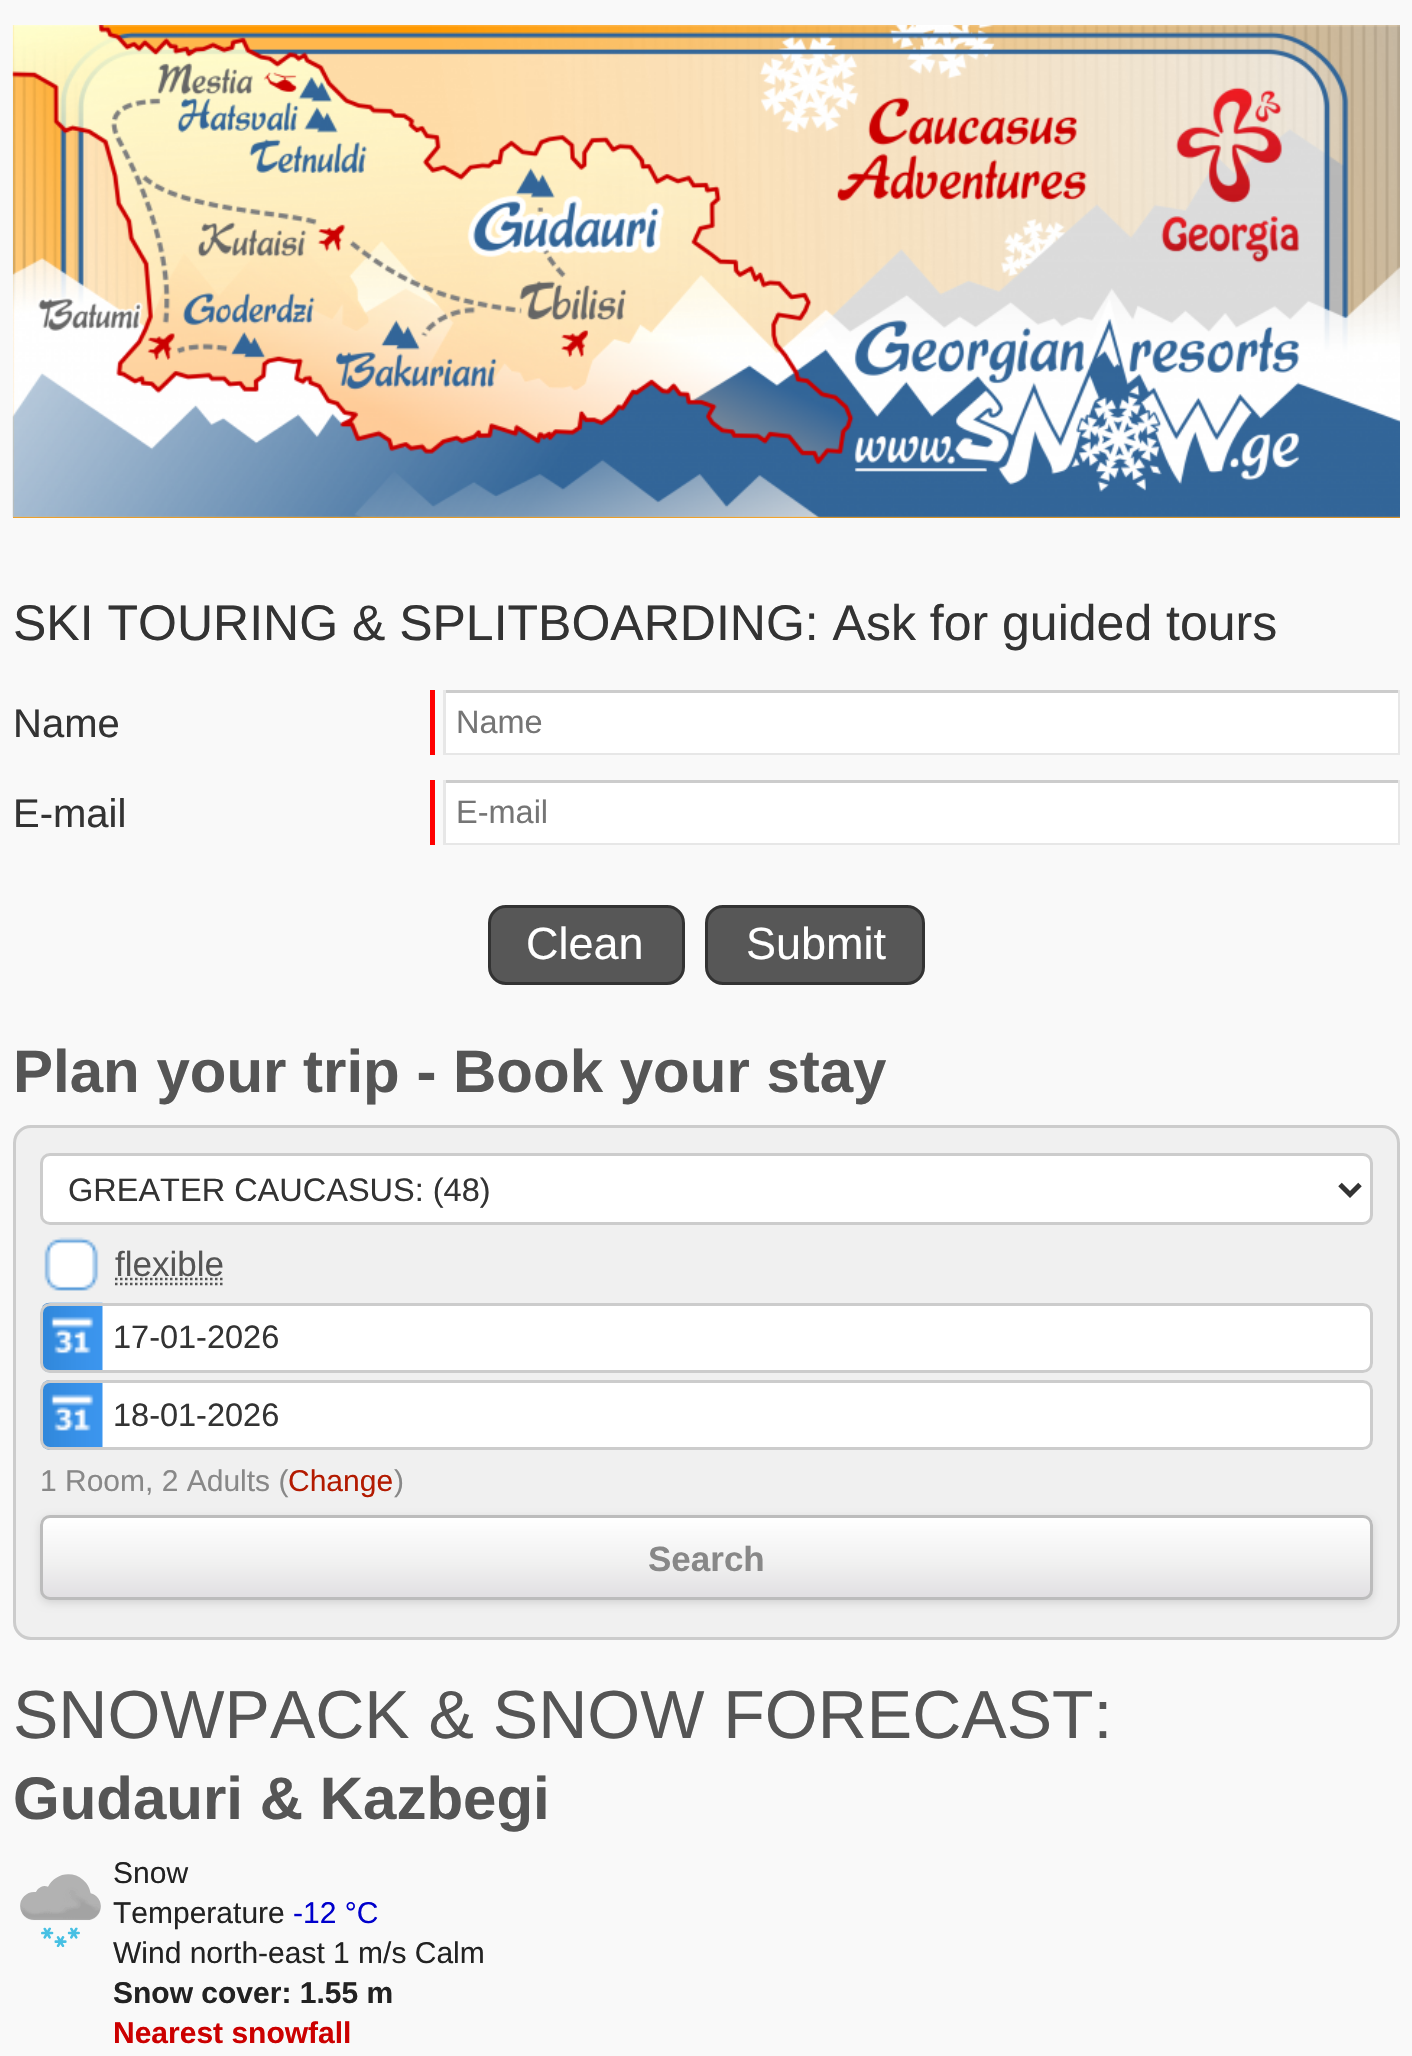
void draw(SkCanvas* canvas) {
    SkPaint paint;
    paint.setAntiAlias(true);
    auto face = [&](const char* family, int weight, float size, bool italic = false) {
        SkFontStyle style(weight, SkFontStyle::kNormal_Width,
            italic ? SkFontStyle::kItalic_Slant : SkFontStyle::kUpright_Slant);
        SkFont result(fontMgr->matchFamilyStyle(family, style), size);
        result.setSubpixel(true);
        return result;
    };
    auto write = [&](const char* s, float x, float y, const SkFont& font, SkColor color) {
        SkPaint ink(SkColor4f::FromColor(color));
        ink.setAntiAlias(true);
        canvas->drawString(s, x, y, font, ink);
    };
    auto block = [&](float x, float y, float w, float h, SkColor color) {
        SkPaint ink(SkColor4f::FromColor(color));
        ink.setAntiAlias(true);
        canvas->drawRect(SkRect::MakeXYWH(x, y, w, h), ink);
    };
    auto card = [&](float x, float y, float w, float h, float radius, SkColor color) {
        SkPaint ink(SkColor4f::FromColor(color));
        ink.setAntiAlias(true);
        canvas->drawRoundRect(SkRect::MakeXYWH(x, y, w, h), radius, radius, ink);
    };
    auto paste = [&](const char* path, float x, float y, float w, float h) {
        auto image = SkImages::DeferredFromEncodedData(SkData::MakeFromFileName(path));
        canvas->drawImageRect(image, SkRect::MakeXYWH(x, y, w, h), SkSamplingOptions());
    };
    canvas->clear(SkColorSetRGB(249, 249, 249));
    block(13, 25, 1387, 493, SkColorSetRGB(255, 153, 0));
    paste("pic1.png", 12, 25, 1388, 493);
    auto kFont1 = face("Liberation Sans", 400, 50);
    write("SKI TOURING & SPLITBOARDING: Ask for guided tours", 13, 640, kFont1, SkColorSetRGB(51, 51, 51));
    auto kFont2 = face("Liberation Sans", 400, 40);
    write("Name", 13, 737, kFont2, SkColorSetRGB(51, 51, 51));
    block(430, 690, 5, 65, SkColorSetRGB(255, 0, 0));
    block(446, 693, 952, 60, SK_ColorWHITE);
    block(443, 690, 957, 3, SkColorSetRGB(204, 204, 204));
    block(1398, 690, 2, 65, SkColorSetRGB(231, 231, 231));
    block(443, 753, 957, 2, SkColorSetRGB(231, 231, 231));
    block(443, 690, 3, 65, SkColorSetRGB(231, 231, 231));
    auto kFont3 = face("Liberation Sans", 400, 32.5f);
    write("Name", 456, 733, kFont3, SkColorSetRGB(117, 117, 117));
    write("E-mail", 13, 827, kFont2, SkColorSetRGB(51, 51, 51));
    block(430, 780, 5, 65, SkColorSetRGB(255, 0, 0));
    block(446, 783, 952, 60, SK_ColorWHITE);
    block(443, 780, 957, 3, SkColorSetRGB(204, 204, 204));
    block(1398, 780, 2, 65, SkColorSetRGB(231, 231, 231));
    block(443, 843, 957, 2, SkColorSetRGB(231, 231, 231));
    block(443, 780, 3, 65, SkColorSetRGB(231, 231, 231));
    write("E-mail", 456, 823, kFont3, SkColorSetRGB(117, 117, 117));
    paint.setColor(SkColorSetRGB(87, 87, 87));
    canvas->drawRoundRect(SkRect::MakeXYWH(489.5f, 906.5f, 194, 77), 16.5f, 16.5f, paint);
    paint.setStyle(SkPaint::kStroke_Style);
    paint.setStrokeWidth(3);
    paint.setColor(SkColorSetRGB(51, 51, 51));
    canvas->drawRoundRect(SkRect::MakeXYWH(489.5f, 906.5f, 194, 77), 16.5f, 16.5f, paint);
    auto kFont4 = face("Liberation Sans", 400, 45);
    write("Clean", 526, 959, kFont4, SK_ColorWHITE);
    paint.setStyle(SkPaint::kFill_Style);
    paint.setColor(SkColorSetRGB(87, 87, 87));
    canvas->drawRoundRect(SkRect::MakeXYWH(706.5f, 906.5f, 217, 77), 16.5f, 16.5f, paint);
    paint.setStyle(SkPaint::kStroke_Style);
    paint.setColor(SkColorSetRGB(51, 51, 51));
    canvas->drawRoundRect(SkRect::MakeXYWH(706.5f, 906.5f, 217, 77), 16.5f, 16.5f, paint);
    write("Submit", 746, 959, kFont4, SK_ColorWHITE);
    auto kFont5 = face("Liberation Sans", 700, 60);
    write("Plan your trip - Book your stay", 13, 1092, kFont5, SkColorSetRGB(85, 85, 85));
    paint.setStyle(SkPaint::kFill_Style);
    paint.setColor(SkColorSetRGB(240, 240, 240));
    canvas->drawRoundRect(SkRect::MakeXYWH(14.5f, 1126.5f, 1384, 512), 16.5f, 16.5f, paint);
    paint.setStyle(SkPaint::kStroke_Style);
    paint.setColor(SkColorSetRGB(204, 204, 204));
    canvas->drawRoundRect(SkRect::MakeXYWH(14.5f, 1126.5f, 1384, 512), 16.5f, 16.5f, paint);
    paint.setStyle(SkPaint::kFill_Style);
    paint.setColor(SK_ColorWHITE);
    canvas->drawRoundRect(SkRect::MakeXYWH(41.5f, 1154.5f, 1330, 69), 8.5f, 8.5f, paint);
    paint.setStyle(SkPaint::kStroke_Style);
    paint.setColor(SkColorSetRGB(204, 204, 204));
    canvas->drawRoundRect(SkRect::MakeXYWH(41.5f, 1154.5f, 1330, 69), 8.5f, 8.5f, paint);
    paint.setStrokeWidth(5);
    paint.setColor(SkColorSetRGB(51, 51, 51));
    canvas->drawPath(SkPathBuilder().moveTo(1340, 1184.5f).lineTo(1350, 1194.5f).lineTo(1360, 1184.5f).detach(), paint);
    write("GREATER CAUCASUS: (48)", 68, 1201, kFont3, SkColorSetRGB(51, 51, 51));
    paste("pic2.png", 44, 1237, 55, 54);
    auto kFont6 = face("Liberation Sans", 400, 35);
    write("flexible", 115, 1276, kFont6, SkColorSetRGB(85, 85, 85));
    paint.setStrokeWidth(2.5f);
    paint.setColor(SkColorSetRGB(86, 86, 86));
    paint.setPathEffect(SkDashPathEffect::Make({{2.5f, 2.5f}}, 0));
    canvas->drawPath(SkPathBuilder().moveTo(115, 1284).lineTo(225, 1284).detach(), paint);
    paint.setPathEffect(nullptr);
    paint.setColor(SkColorSetRGB(85, 85, 85));
    paint.setPathEffect(SkDashPathEffect::Make({{2.5f, 2.5f}}, 0));
    canvas->drawPath(SkPathBuilder().moveTo(115, 1279).lineTo(224, 1279).detach(), paint);
    paint.setPathEffect(nullptr);
    card(40, 1303, 1333, 70, 10, SK_ColorWHITE);
    paste("pic3.png", 42, 1302, 61, 71);
    paint.setStrokeWidth(3);
    paint.setColor(SkColorSetRGB(204, 204, 204));
    canvas->drawRoundRect(SkRect::MakeXYWH(41.5f, 1304.5f, 1330, 67), 8.5f, 8.5f, paint);
    write("17-01-2026", 113, 1348, kFont3, SkColorSetRGB(51, 51, 51));
    card(40, 1380, 1333, 70, 10, SK_ColorWHITE);
    paste("pic4.png", 42, 1380, 61, 70);
    canvas->drawRoundRect(SkRect::MakeXYWH(41.5f, 1381.5f, 1330, 67), 8.5f, 8.5f, paint);
    write("18-01-2026", 113, 1426, kFont3, SkColorSetRGB(51, 51, 51));
    auto kFont7 = face("Liberation Sans", 400, 30);
    write("1 Room, 2 Adults (", 40, 1491, kFont7, SkColorSetRGB(136, 136, 136));
    write("Change", 288, 1491, kFont7, SkColorSetRGB(179, 26, 0));
    write(")", 394, 1491, kFont7, SkColorSetRGB(136, 136, 136));
    paint.setStyle(SkPaint::kFill_Style);
    paint.setColor(SkColorSetARGB(31, 0, 0, 0));
    paint.setMaskFilter(SkMaskFilter::MakeBlur(kNormal_SkBlurStyle, 4));
    canvas->drawRoundRect(SkRect::MakeXYWH(40, 1518, 1333, 85), 10, 10, paint);
    paint.setMaskFilter(nullptr);
    canvas->save();
    canvas->clipPath(SkPathBuilder().moveTo(50, 1515).lineTo(1363, 1515).cubicTo(1368.5f, 1515, 1373, 1519.5f, 1373, 1525).lineTo(1373, 1590).cubicTo(1373, 1595.5f, 1368.5f, 1600, 1363, 1600).lineTo(50, 1600).cubicTo(44.5f, 1600, 40, 1595.5f, 40, 1590).lineTo(40, 1525).cubicTo(40, 1519.5f, 44.5f, 1515, 50, 1515).close().detach(), true);
    {
        const SkColor colors[] = {SK_ColorWHITE, SkColorSetRGB(239, 239, 239), SkColorSetRGB(225, 223, 226)};
        const float stops[] = {0, 0.6f, 1};
        const SkPoint ends[] = {{706, 1518}, {706, 1598}};
        paint.setShader(SkGradientShader::MakeLinear(ends, colors, stops, 3, SkTileMode::kClamp));
        paint.setAlpha(255);
    }
    canvas->drawRect(SkRect::MakeXYWH(40, 1518, 1333, 80), paint);
    canvas->restore();
    paint.setStyle(SkPaint::kStroke_Style);
    paint.setShader(nullptr);
    paint.setColor(SkColorSetRGB(188, 188, 188));
    canvas->drawRoundRect(SkRect::MakeXYWH(41.5f, 1516.5f, 1330, 82), 8.5f, 8.5f, paint);
    auto kFont8 = face("Liberation Sans", 700, 35);
    write("Search", 648, 1571, kFont8, SkColorSetRGB(136, 136, 136));
    auto kFont9 = face("Liberation Sans", 400, 68);
    write("SNOWPACK & SNOW FORECAST:", 13, 1738, kFont9, SkColorSetRGB(85, 85, 85));
    write("Gudauri & Kazbegi", 13, 1819, kFont5, SkColorSetRGB(85, 85, 85));
    paste("pic5.png", 20, 1874, 81, 74);
    write("Snow", 113, 1883, kFont7, SkColorSetRGB(34, 34, 34));
    write("Temperature", 113, 1923, kFont7, SkColorSetRGB(34, 34, 34));
    write("-12 °C", 293, 1923, kFont7, SkColorSetRGB(0, 0, 204));
    write("Wind north-east 1 m/s Calm", 113, 1963, kFont7, SkColorSetRGB(34, 34, 34));
    auto kFont10 = face("Liberation Sans", 700, 30);
    write("Snow cover: 1.55 m", 113, 2003, kFont10, SkColorSetRGB(34, 34, 34));
    write("Nearest snowfall", 113, 2043, kFont10, SkColorSetRGB(204, 0, 0));
}
